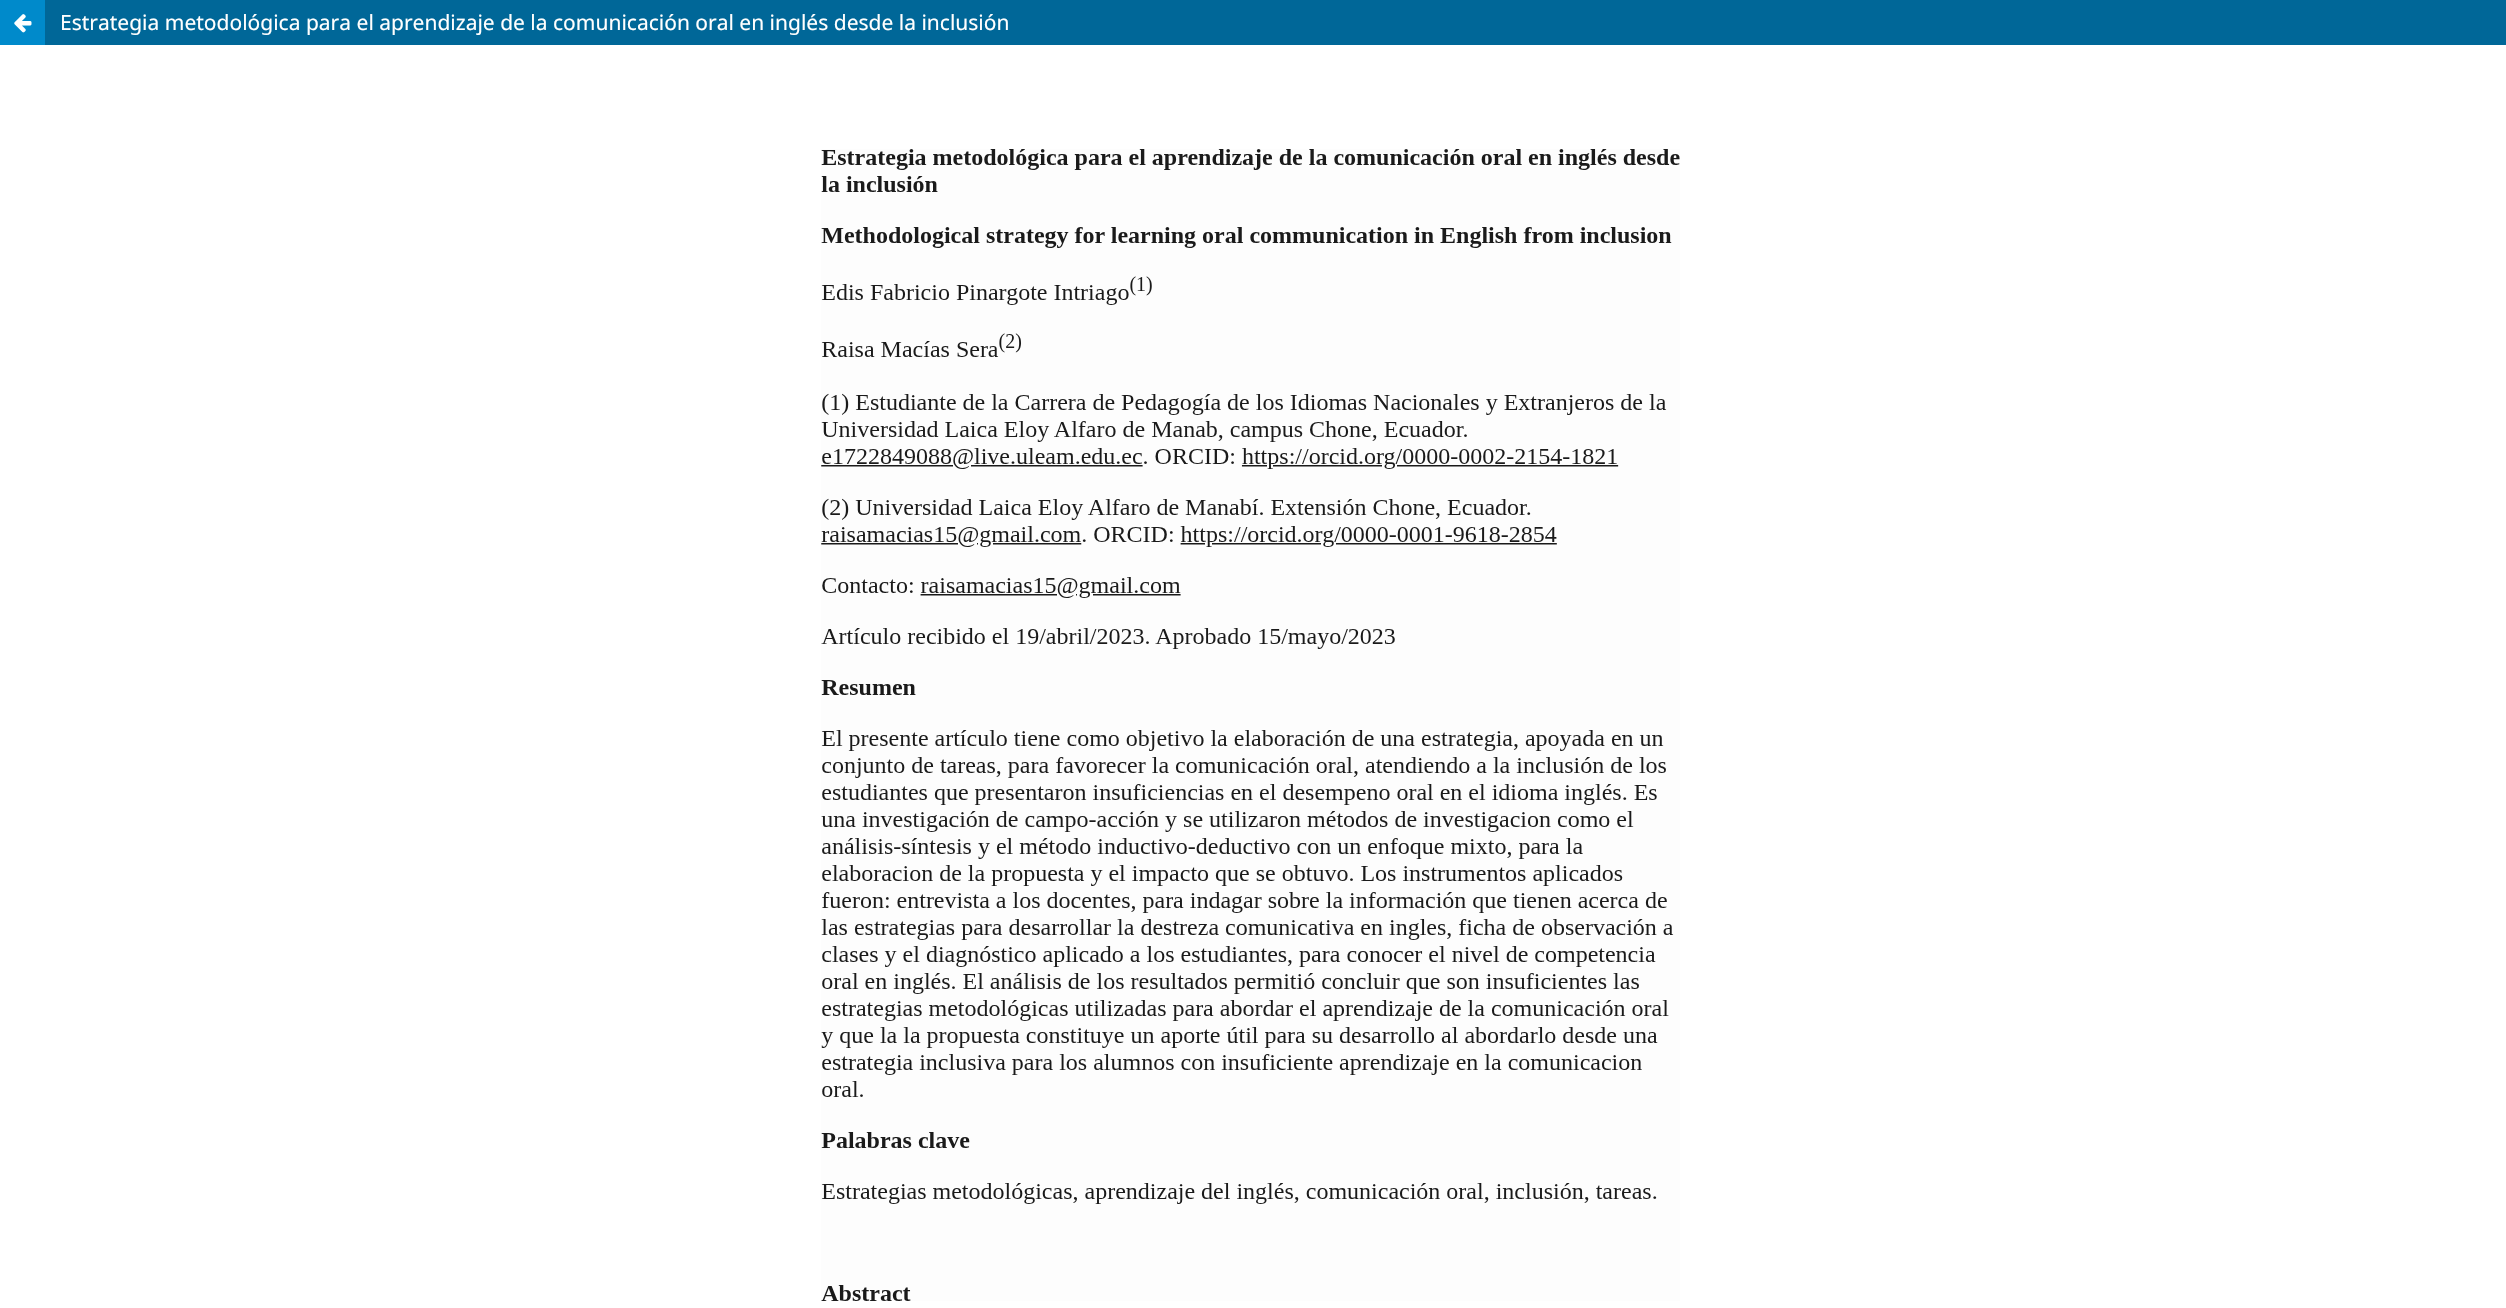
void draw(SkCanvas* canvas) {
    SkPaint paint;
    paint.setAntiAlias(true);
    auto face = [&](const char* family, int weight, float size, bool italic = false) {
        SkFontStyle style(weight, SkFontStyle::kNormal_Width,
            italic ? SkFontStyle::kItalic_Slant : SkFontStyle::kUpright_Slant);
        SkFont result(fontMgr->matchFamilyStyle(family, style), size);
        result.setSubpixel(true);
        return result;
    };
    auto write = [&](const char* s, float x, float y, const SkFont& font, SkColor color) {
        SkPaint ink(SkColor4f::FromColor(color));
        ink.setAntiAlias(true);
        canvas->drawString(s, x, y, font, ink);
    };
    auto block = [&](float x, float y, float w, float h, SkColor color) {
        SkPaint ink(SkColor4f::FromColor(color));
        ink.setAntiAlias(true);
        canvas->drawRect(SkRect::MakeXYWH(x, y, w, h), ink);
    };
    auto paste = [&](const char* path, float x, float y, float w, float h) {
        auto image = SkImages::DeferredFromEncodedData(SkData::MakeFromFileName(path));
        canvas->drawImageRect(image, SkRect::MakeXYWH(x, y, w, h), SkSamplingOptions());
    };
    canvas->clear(SK_ColorWHITE);
    block(45, 0, 2461, 45, SkColorSetRGB(0, 103, 152));
    block(0, 0, 45, 45, SkColorSetRGB(0, 138, 203));
    paste("pic1.png", 14, 14, 18, 19);
    auto kFont1 = face("Noto Sans", 400, 21);
    write("Estrategia metodológica para el aprendizaje de la comunicación oral en inglés desde la inclusión", 60, 30, kFont1, SK_ColorWHITE);
    paste("pic2.png", 821, 149, 859, 1152);
}
